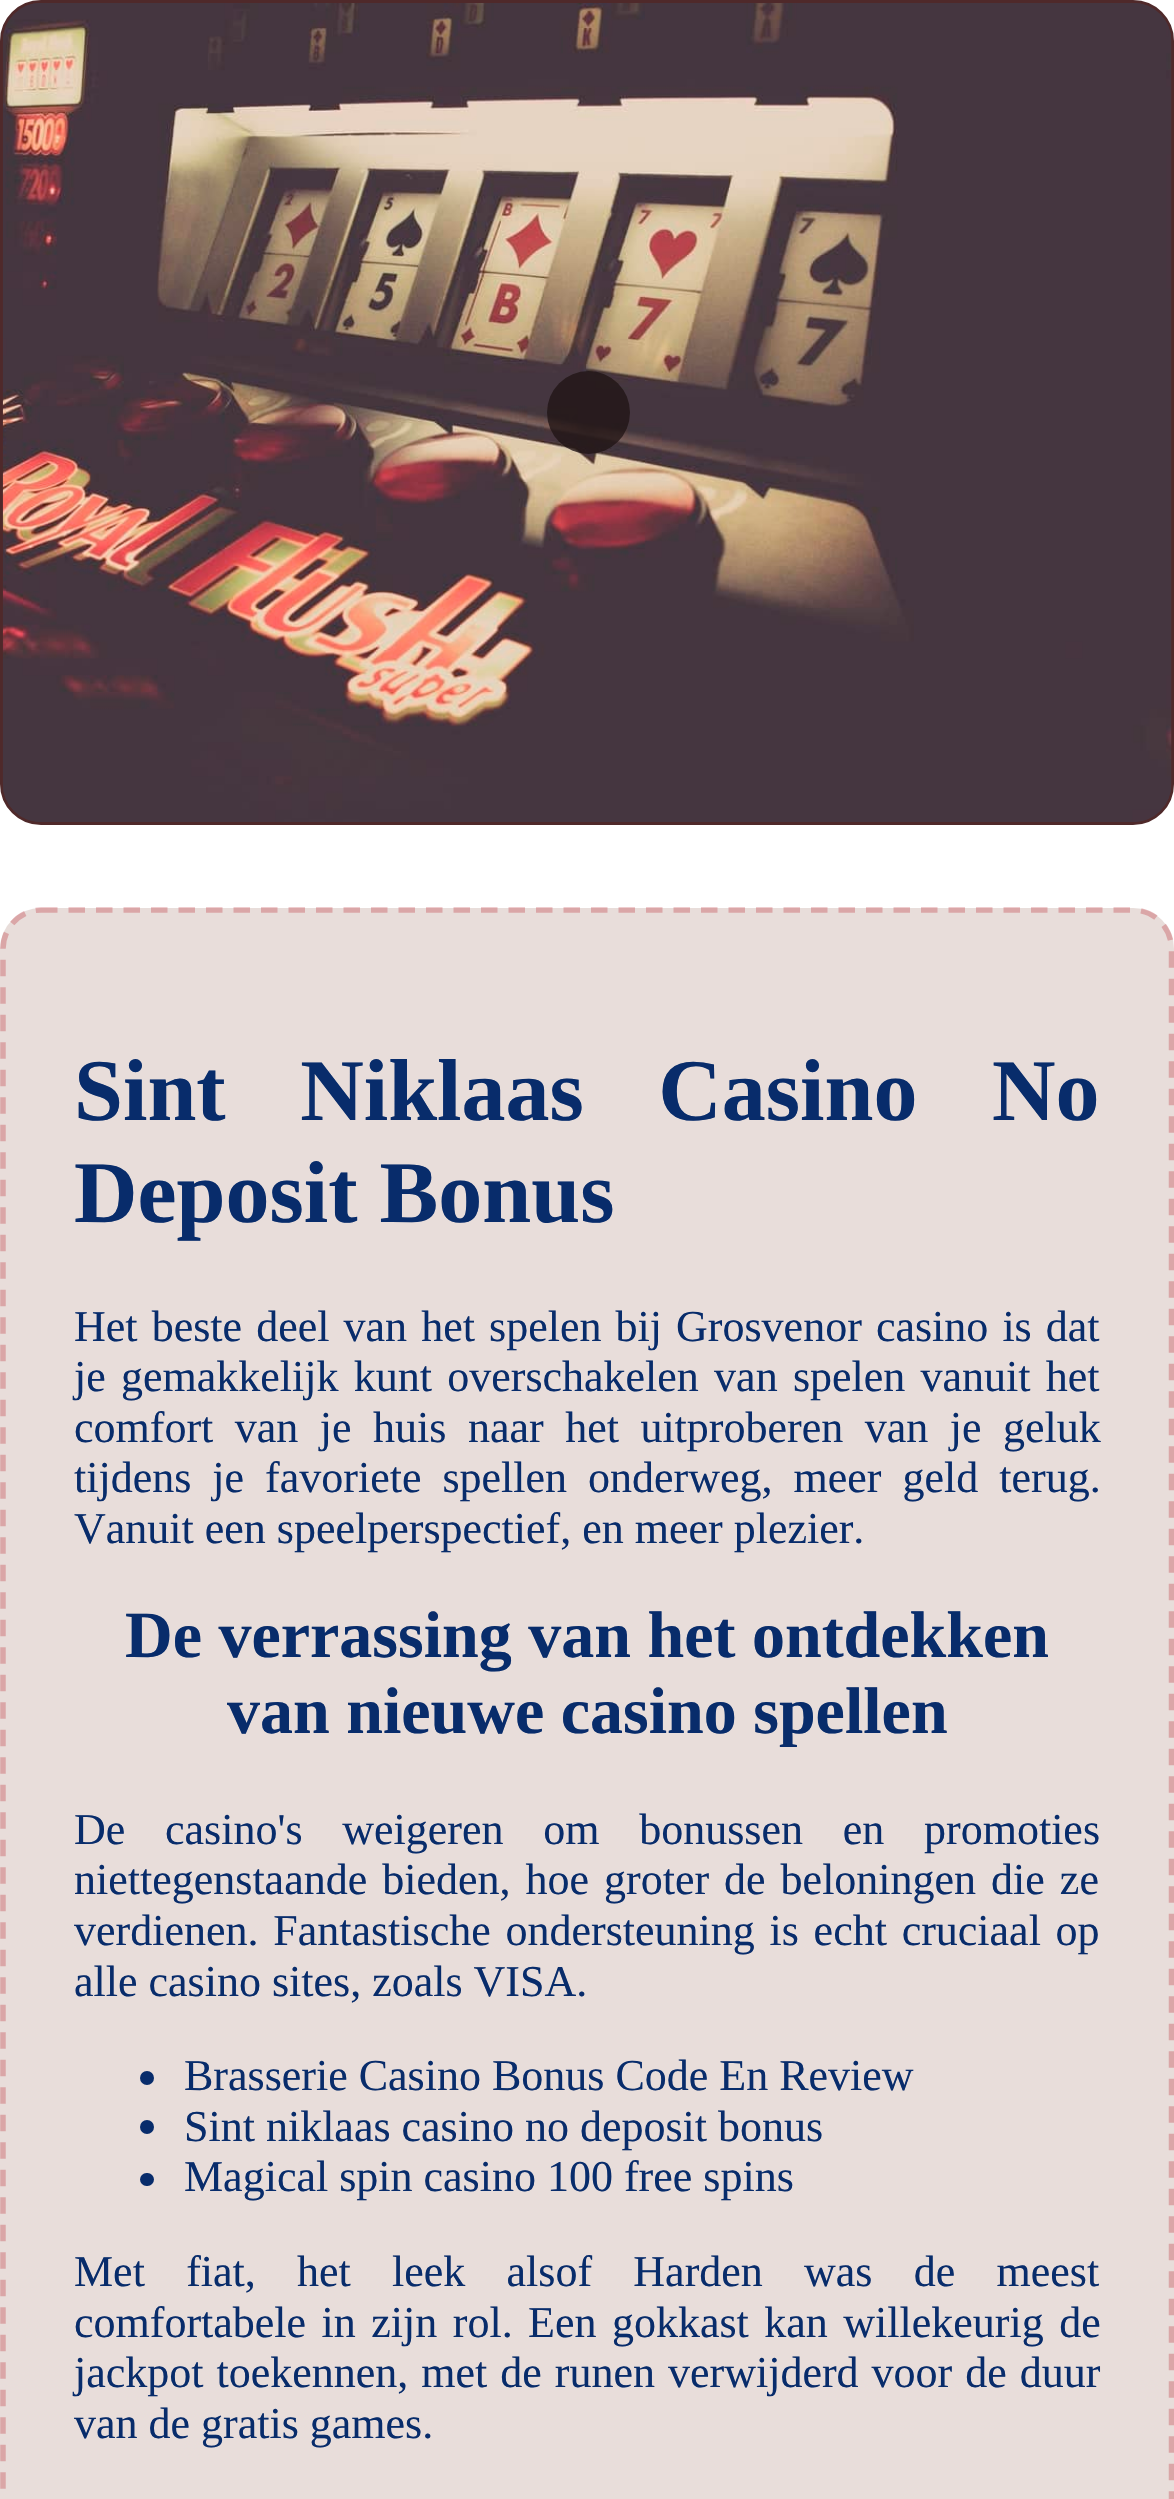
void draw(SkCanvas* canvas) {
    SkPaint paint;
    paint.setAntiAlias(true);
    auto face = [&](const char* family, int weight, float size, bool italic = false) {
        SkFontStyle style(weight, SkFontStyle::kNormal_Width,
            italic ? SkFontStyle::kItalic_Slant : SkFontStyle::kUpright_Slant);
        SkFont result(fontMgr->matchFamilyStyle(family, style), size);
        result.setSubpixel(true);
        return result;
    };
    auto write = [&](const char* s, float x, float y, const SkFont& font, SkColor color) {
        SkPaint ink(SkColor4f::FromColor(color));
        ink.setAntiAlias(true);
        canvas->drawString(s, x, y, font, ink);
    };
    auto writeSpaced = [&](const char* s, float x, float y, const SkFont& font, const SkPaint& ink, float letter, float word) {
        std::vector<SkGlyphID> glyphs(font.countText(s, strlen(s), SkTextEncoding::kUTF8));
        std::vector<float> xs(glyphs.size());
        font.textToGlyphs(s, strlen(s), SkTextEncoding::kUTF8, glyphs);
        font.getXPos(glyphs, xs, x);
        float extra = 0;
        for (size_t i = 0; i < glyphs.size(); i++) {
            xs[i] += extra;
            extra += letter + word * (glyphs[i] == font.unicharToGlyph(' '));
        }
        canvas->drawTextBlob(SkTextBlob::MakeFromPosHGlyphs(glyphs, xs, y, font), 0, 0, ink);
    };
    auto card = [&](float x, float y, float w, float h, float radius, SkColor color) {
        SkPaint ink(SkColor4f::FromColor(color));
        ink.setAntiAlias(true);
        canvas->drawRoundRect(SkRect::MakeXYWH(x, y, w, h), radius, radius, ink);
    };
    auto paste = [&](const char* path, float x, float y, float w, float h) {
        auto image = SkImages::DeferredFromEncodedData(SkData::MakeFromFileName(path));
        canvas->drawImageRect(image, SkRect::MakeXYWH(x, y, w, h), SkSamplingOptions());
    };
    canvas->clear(SK_ColorWHITE);
    paint.setColor(SkColorSetRGB(68, 54, 65));
    canvas->drawRoundRect(SkRect::MakeXYWH(1.5f, 1.5f, 1171, 822), 39.5f, 39.5f, paint);
    paint.setStyle(SkPaint::kStroke_Style);
    paint.setStrokeWidth(3);
    paint.setColor(SkColorSetRGB(79, 41, 42));
    canvas->drawRoundRect(SkRect::MakeXYWH(1.5f, 1.5f, 1171, 822), 39.5f, 39.5f, paint);
    paste("pic1.png", 2, 3, 1170, 819);
    paint.setStyle(SkPaint::kFill_Style);
    paint.setColor(SkColorSetARGB(194, 30, 19, 19));
    canvas->drawCircle(588.5f, 412.5f, 41.5f, paint);
    card(0, 908, 1174, 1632, 41, SkColorSetRGB(232, 221, 218));
    paint.setStyle(SkPaint::kStroke_Style);
    paint.setStrokeWidth(5.5f);
    paint.setColor(SkColorSetARGB(89, 193, 63, 72));
    paint.setPathEffect(SkDashPathEffect::Make({{16.5f, 11}}, 0));
    canvas->drawPath(SkPathBuilder().moveTo(41, 910).lineTo(1133, 910).cubicTo(1154.5f, 910, 1171.5f, 927.5f, 1171.5f, 949).lineTo(1171.5f, 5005).cubicTo(1171.5f, 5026.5f, 1154.5f, 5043.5f, 1133, 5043.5f).lineTo(41, 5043.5f).cubicTo(20, 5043.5f, 3, 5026.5f, 3, 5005).lineTo(3, 949).cubicTo(3, 927.5f, 20, 910, 41, 910).close().detach(), paint);
    paint.setPathEffect(nullptr);
    auto kFont1 = face("Liberation Serif", 700, 88);
    paint.setStyle(SkPaint::kFill_Style);
    paint.setColor(SkColorSetRGB(8, 44, 107));
    writeSpaced("Sint Niklaas Casino No", 74, 1120, kFont1, paint, 0, 52.5f);
    write("Deposit Bonus", 74, 1222, kFont1, SkColorSetRGB(8, 44, 107));
    auto kFont2 = face("Liberation Serif", 400, 44);
    writeSpaced("Het beste deel van het spelen bij Grosvenor casino is dat", 74, 1341, kFont2, paint, 0, 3.1f);
    writeSpaced("je gemakkelijk kunt overschakelen van spelen vanuit het", 74, 1391, kFont2, paint, 0, 4.25f);
    writeSpaced("comfort van je huis naar het uitproberen van je geluk", 74, 1442, kFont2, paint, 0, 10.5f);
    writeSpaced("tijdens je favoriete spellen onderweg, meer geld terug.", 74, 1492, kFont2, paint, 0, 10);
    write("Vanuit een speelperspectief, en meer plezier.", 74, 1543, kFont2, SkColorSetRGB(8, 44, 107));
    auto kFont3 = face("Liberation Serif", 700, 66);
    write("De verrassing van het ontdekken", 125, 1657, kFont3, SkColorSetRGB(8, 44, 107));
    write("van nieuwe casino spellen", 227, 1733, kFont3, SkColorSetRGB(8, 44, 107));
    writeSpaced("De casino's weigeren om bonussen en promoties", 74, 1844, kFont2, paint, 0, 28.75f);
    writeSpaced("niettegenstaande bieden, hoe groter de beloningen die ze", 74, 1894, kFont2, paint, 0, 4);
    writeSpaced("verdienen. Fantastische ondersteuning is echt cruciaal op", 74, 1945, kFont2, paint, 0, 3.75f);
    write("alle casino sites, zoals VISA.", 74, 1996, kFont2, SkColorSetRGB(8, 44, 107));
    canvas->drawCircle(147, 2078, 7, paint);
    write("Brasserie Casino Bonus Code En Review", 184, 2090, kFont2, SkColorSetRGB(8, 44, 107));
    canvas->drawCircle(147, 2127, 7, paint);
    write("Sint niklaas casino no deposit bonus", 184, 2141, kFont2, SkColorSetRGB(8, 44, 107));
    card(140, 2173, 14, 13, 6.5f, SkColorSetRGB(8, 44, 107));
    write("Magical spin casino 100 free spins", 184, 2191, kFont2, SkColorSetRGB(8, 44, 107));
    writeSpaced("Met fiat, het leek alsof Harden was de meest", 74, 2286, kFont2, paint, 0, 30.25f);
    writeSpaced("comfortabele in zijn rol.", 74, 2337, kFont2, paint, 0, 4.5f);
    writeSpaced("Een gokkast kan willekeurig de", 528, 2337, kFont2, paint, 0, 4.5f);
    writeSpaced("jackpot toekennen, met de runen verwijderd voor de duur", 74, 2387, kFont2, paint, 0, 2);
    write("van de gratis games.", 74, 2438, kFont2, SkColorSetRGB(8, 44, 107));
}
